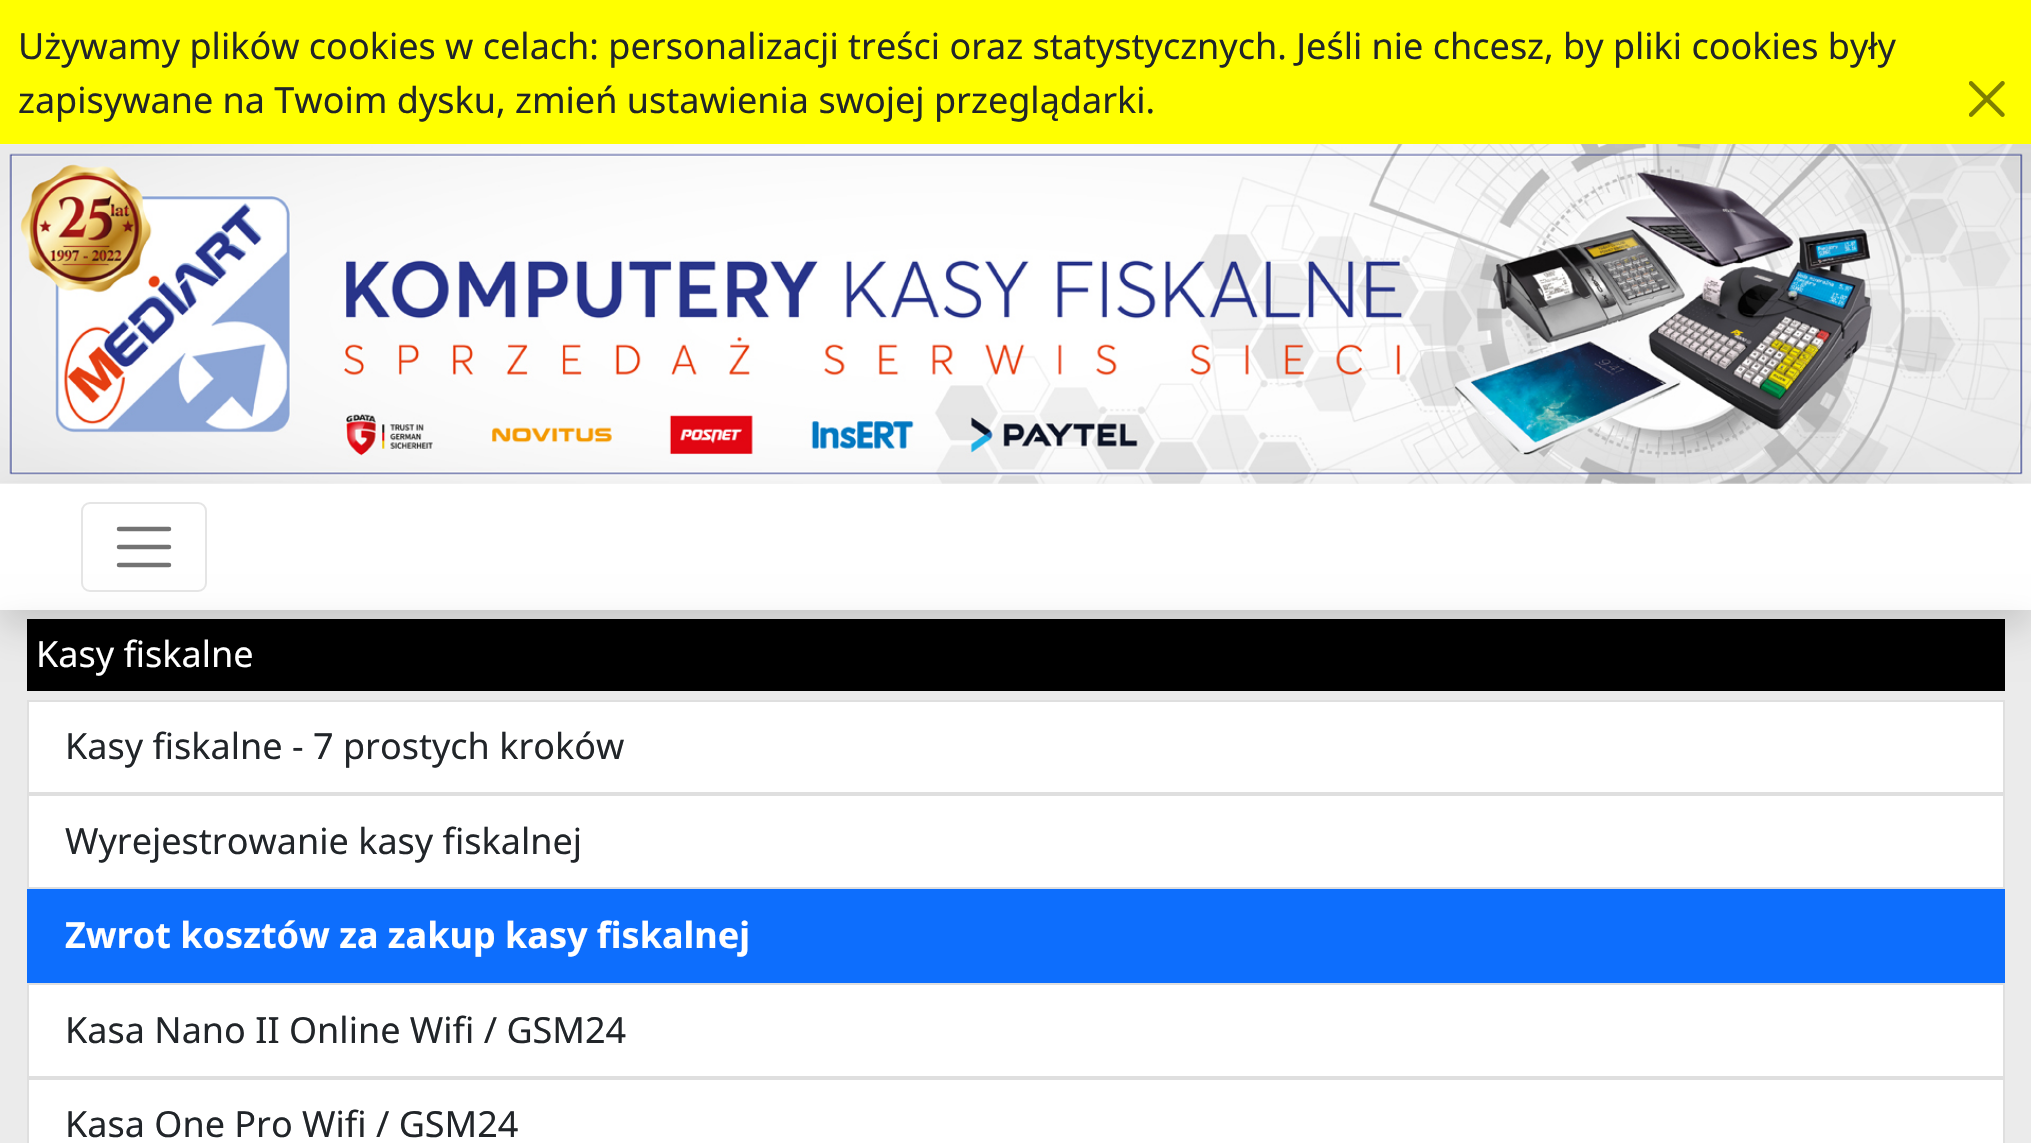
void draw(SkCanvas* canvas) {
    SkPaint paint;
    paint.setAntiAlias(true);
    auto face = [&](const char* family, int weight, float size, bool italic = false) {
        SkFontStyle style(weight, SkFontStyle::kNormal_Width,
            italic ? SkFontStyle::kItalic_Slant : SkFontStyle::kUpright_Slant);
        SkFont result(fontMgr->matchFamilyStyle(family, style), size);
        result.setSubpixel(true);
        return result;
    };
    auto write = [&](const char* s, float x, float y, const SkFont& font, SkColor color) {
        SkPaint ink(SkColor4f::FromColor(color));
        ink.setAntiAlias(true);
        canvas->drawString(s, x, y, font, ink);
    };
    auto block = [&](float x, float y, float w, float h, SkColor color) {
        SkPaint ink(SkColor4f::FromColor(color));
        ink.setAntiAlias(true);
        canvas->drawRect(SkRect::MakeXYWH(x, y, w, h), ink);
    };
    auto paste = [&](const char* path, float x, float y, float w, float h) {
        auto image = SkImages::DeferredFromEncodedData(SkData::MakeFromFileName(path));
        canvas->drawImageRect(image, SkRect::MakeXYWH(x, y, w, h), SkSamplingOptions());
    };
    canvas->clear(SK_ColorWHITE);
    block(0, 0, 2031, 144, SkColorSetRGB(255, 255, 0));
    auto kFont1 = face("Noto Sans", 400, 36);
    write("Używamy plików cookies w celach: personalizacji treści oraz statystycznych. Jeśli nie chcesz, by pliki cookies były", 18, 59, kFont1, SkColorSetRGB(33, 37, 41));
    write("zapisywane na Twoim dysku, zmień ustawienia swojej przeglądarki.", 18, 113, kFont1, SkColorSetRGB(33, 37, 41));
    paste("pic1.png", 1969, 81, 36, 36);
    paste("pic2.png", 0, 144, 2031, 340);
    paint.setColor(SkColorSetARGB(38, 0, 0, 0));
    paint.setMaskFilter(SkMaskFilter::MakeBlur(kNormal_SkBlurStyle, 18));
    canvas->drawRect(SkRect::MakeXYWH(0, 628, 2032, 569), paint);
    paint.setMaskFilter(nullptr);
    block(0, 610, 2031, 533, SkColorSetRGB(235, 235, 235));
    block(27, 619, 1978, 72, SK_ColorBLACK);
    canvas->save();
    canvas->clipPath(SkPathBuilder(SkPathFillType::kEvenOdd).moveTo(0, 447).lineTo(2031, 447).lineTo(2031, 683).lineTo(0, 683).close().moveTo(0, 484).lineTo(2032, 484).lineTo(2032, 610).lineTo(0, 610).close().detach(), true);
    paint.setMaskFilter(SkMaskFilter::MakeBlur(kNormal_SkBlurStyle, 18));
    canvas->drawRect(SkRect::MakeXYWH(0, 502, 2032, 126), paint);
    paint.setMaskFilter(nullptr);
    canvas->restore();
    paint.setStyle(SkPaint::kStroke_Style);
    paint.setStrokeWidth(2);
    paint.setColor(SkColorSetRGB(229, 229, 229));
    canvas->drawRoundRect(SkRect::MakeXYWH(82, 503, 124, 88), 8, 8, paint);
    paint.setStrokeWidth(4.5f);
    paint.setStrokeCap(SkPaint::kRound_Cap);
    paint.setColor(SkColorSetRGB(115, 115, 115));
    canvas->drawPath(SkPathBuilder().moveTo(119, 529).lineTo(169, 529).moveTo(119, 547).lineTo(169, 547).moveTo(119, 565).lineTo(169, 565).detach(), paint);
    write("Kasy fiskalne", 36, 667, kFont1, SK_ColorWHITE);
    paint.setStyle(SkPaint::kFill_Style);
    paint.setColor(SK_ColorWHITE);
    canvas->drawRect(SkRect::MakeXYWH(28, 701, 1976, 92), paint);
    paint.setStyle(SkPaint::kStroke_Style);
    paint.setStrokeWidth(2);
    paint.setStrokeCap(SkPaint::kButt_Cap);
    paint.setColor(SkColorSetRGB(223, 223, 223));
    canvas->drawRect(SkRect::MakeXYWH(28, 701, 1976, 92), paint);
    write("Kasy fiskalne - 7 prostych kroków", 65, 759, kFont1, SkColorSetRGB(33, 37, 41));
    paint.setStyle(SkPaint::kFill_Style);
    paint.setColor(SK_ColorWHITE);
    canvas->drawRect(SkRect::MakeXYWH(28, 795, 1976, 93), paint);
    paint.setStyle(SkPaint::kStroke_Style);
    paint.setColor(SkColorSetRGB(223, 223, 223));
    canvas->drawRect(SkRect::MakeXYWH(28, 795, 1976, 93), paint);
    write("Wyrejestrowanie kasy fiskalnej", 65, 854, kFont1, SkColorSetRGB(33, 37, 41));
    block(27, 889, 1978, 94, SkColorSetRGB(13, 110, 253));
    auto kFont2 = face("Noto Sans", 700, 36);
    write("Zwrot kosztów za zakup kasy fiskalnej", 65, 948, kFont2, SK_ColorWHITE);
    paint.setStyle(SkPaint::kFill_Style);
    paint.setColor(SK_ColorWHITE);
    canvas->drawRect(SkRect::MakeXYWH(28, 984, 1976, 93), paint);
    paint.setStyle(SkPaint::kStroke_Style);
    paint.setColor(SkColorSetRGB(223, 223, 223));
    canvas->drawRect(SkRect::MakeXYWH(28, 984, 1976, 93), paint);
    write("Kasa Nano II Online Wifi / GSM24", 65, 1043, kFont1, SkColorSetRGB(33, 37, 41));
    paint.setStyle(SkPaint::kFill_Style);
    paint.setColor(SK_ColorWHITE);
    canvas->drawRect(SkRect::MakeXYWH(28, 1079, 1976, 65), paint);
    paint.setStyle(SkPaint::kStroke_Style);
    paint.setColor(SkColorSetRGB(223, 223, 223));
    canvas->drawRect(SkRect::MakeXYWH(28, 1079, 1976, 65), paint);
    write("Kasa One Pro Wifi / GSM24", 65, 1137, kFont1, SkColorSetRGB(33, 37, 41));
}
